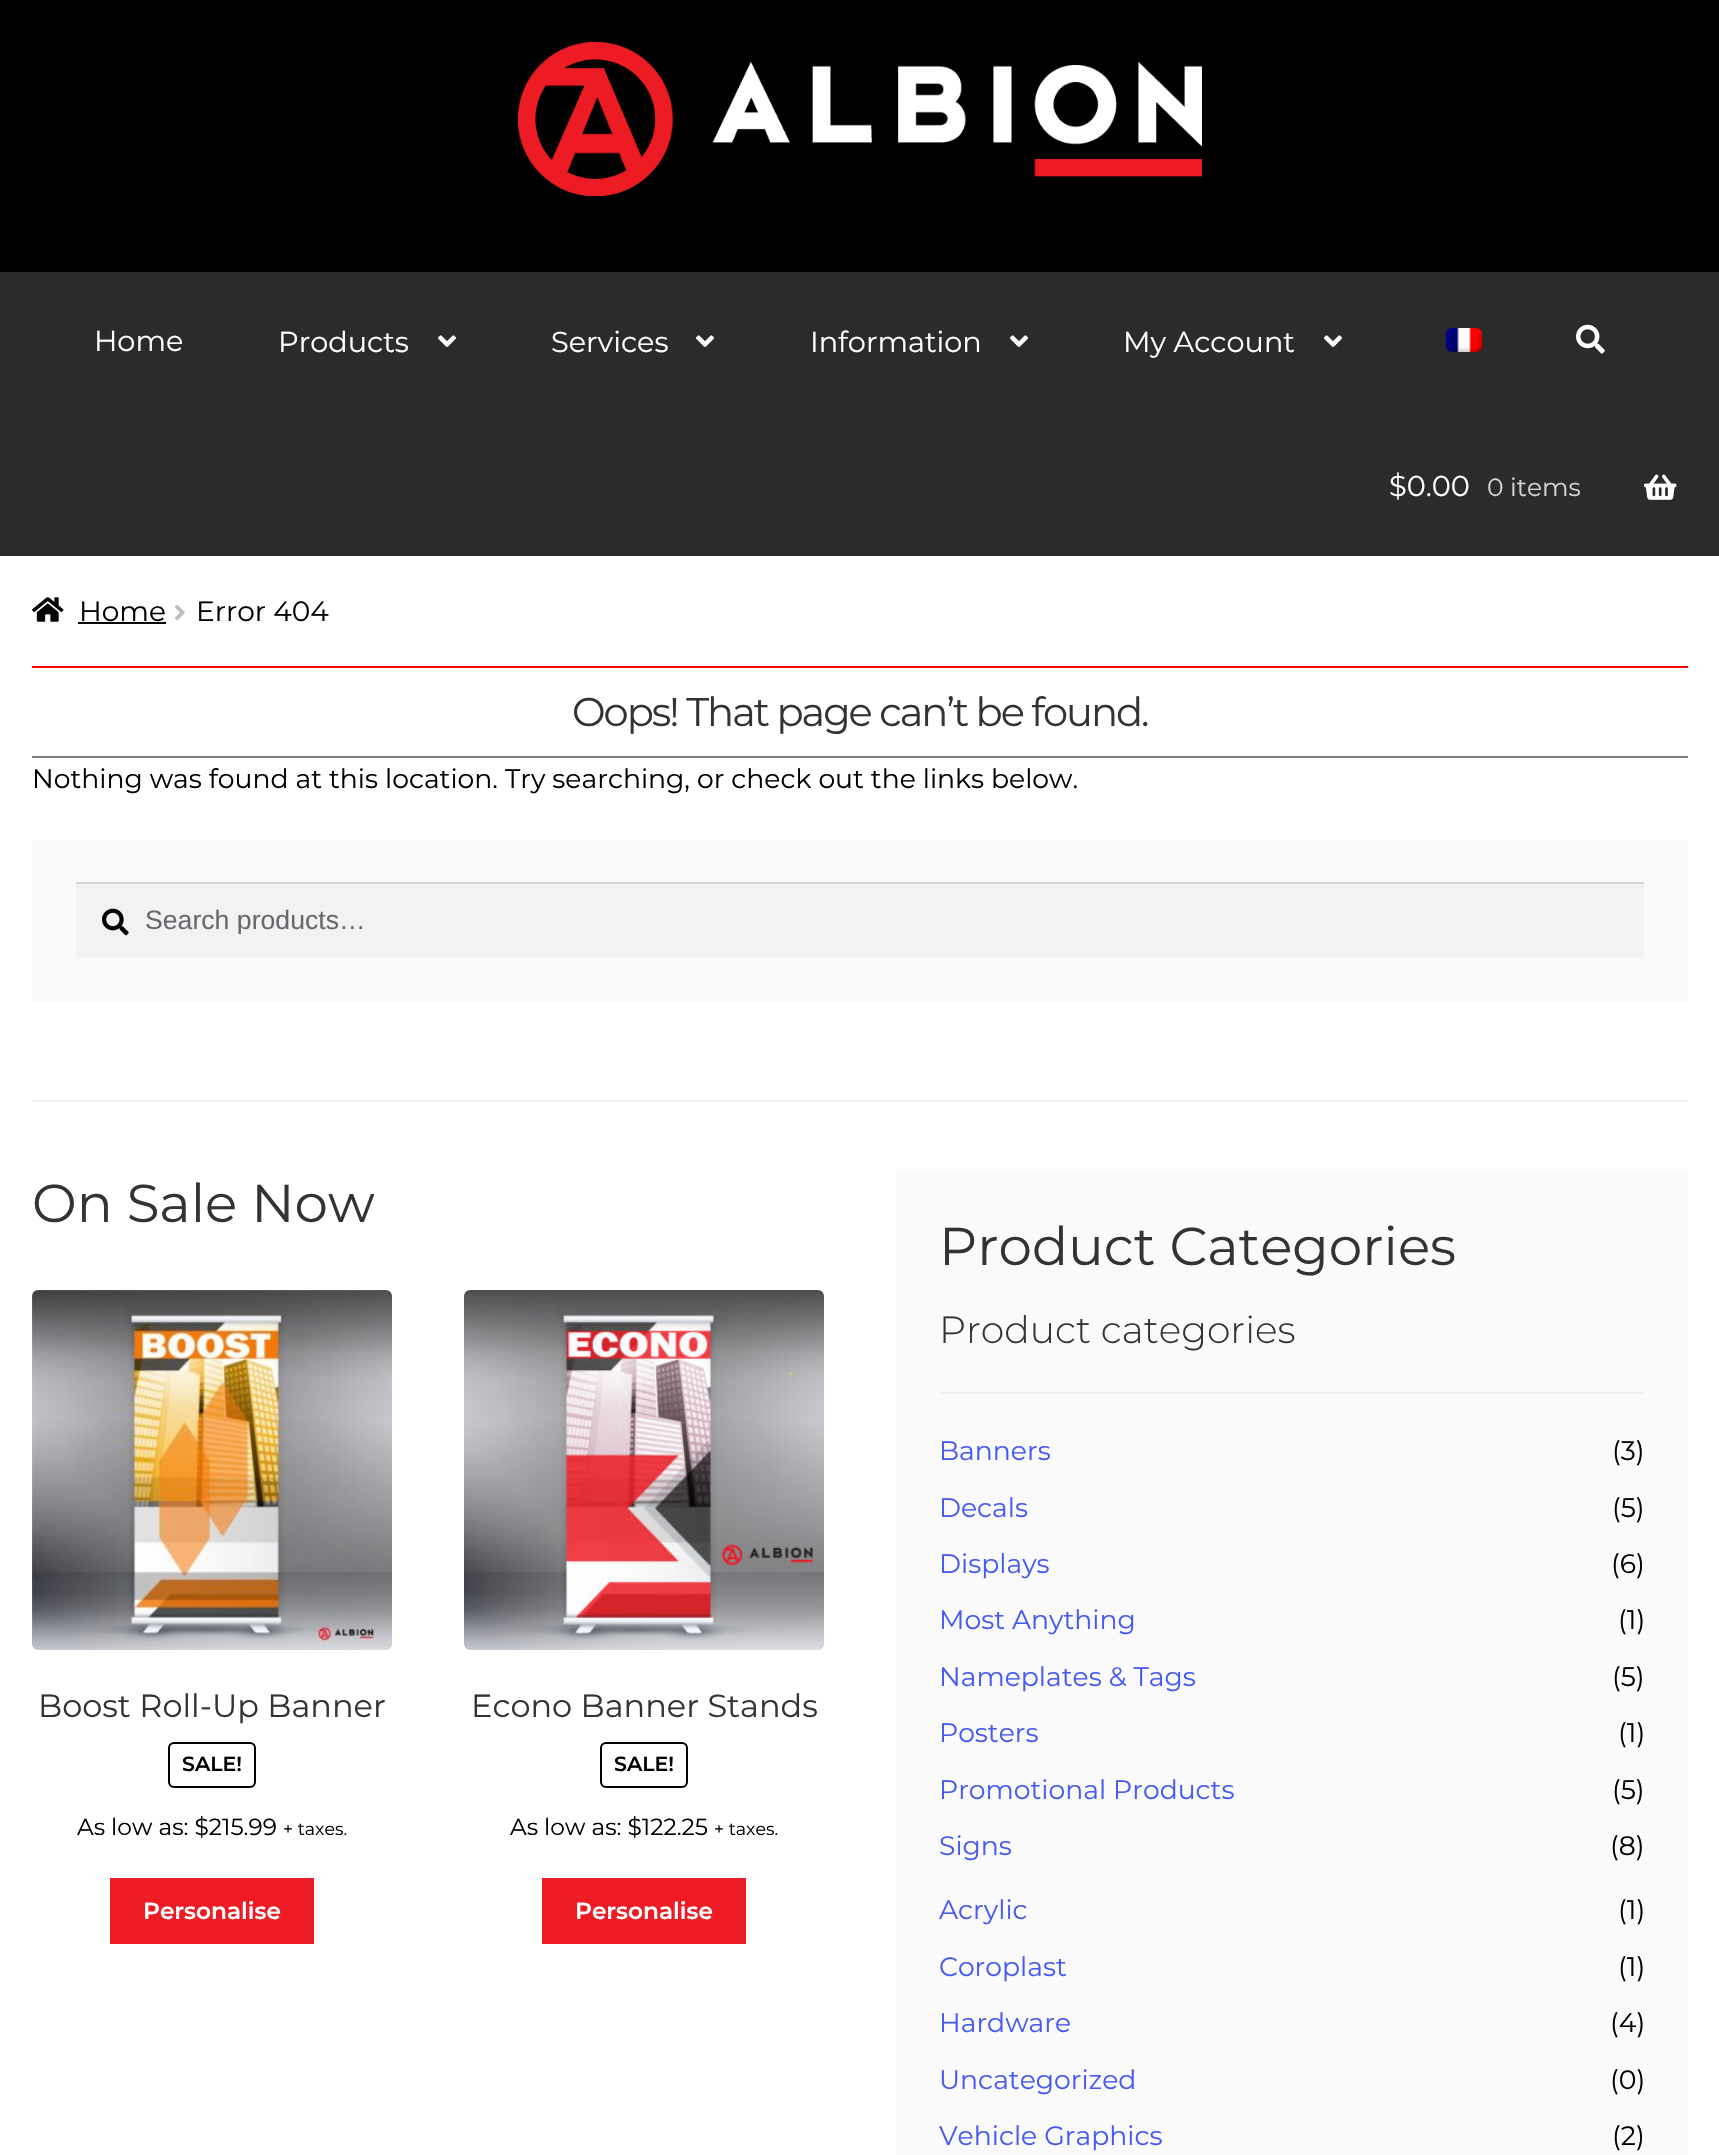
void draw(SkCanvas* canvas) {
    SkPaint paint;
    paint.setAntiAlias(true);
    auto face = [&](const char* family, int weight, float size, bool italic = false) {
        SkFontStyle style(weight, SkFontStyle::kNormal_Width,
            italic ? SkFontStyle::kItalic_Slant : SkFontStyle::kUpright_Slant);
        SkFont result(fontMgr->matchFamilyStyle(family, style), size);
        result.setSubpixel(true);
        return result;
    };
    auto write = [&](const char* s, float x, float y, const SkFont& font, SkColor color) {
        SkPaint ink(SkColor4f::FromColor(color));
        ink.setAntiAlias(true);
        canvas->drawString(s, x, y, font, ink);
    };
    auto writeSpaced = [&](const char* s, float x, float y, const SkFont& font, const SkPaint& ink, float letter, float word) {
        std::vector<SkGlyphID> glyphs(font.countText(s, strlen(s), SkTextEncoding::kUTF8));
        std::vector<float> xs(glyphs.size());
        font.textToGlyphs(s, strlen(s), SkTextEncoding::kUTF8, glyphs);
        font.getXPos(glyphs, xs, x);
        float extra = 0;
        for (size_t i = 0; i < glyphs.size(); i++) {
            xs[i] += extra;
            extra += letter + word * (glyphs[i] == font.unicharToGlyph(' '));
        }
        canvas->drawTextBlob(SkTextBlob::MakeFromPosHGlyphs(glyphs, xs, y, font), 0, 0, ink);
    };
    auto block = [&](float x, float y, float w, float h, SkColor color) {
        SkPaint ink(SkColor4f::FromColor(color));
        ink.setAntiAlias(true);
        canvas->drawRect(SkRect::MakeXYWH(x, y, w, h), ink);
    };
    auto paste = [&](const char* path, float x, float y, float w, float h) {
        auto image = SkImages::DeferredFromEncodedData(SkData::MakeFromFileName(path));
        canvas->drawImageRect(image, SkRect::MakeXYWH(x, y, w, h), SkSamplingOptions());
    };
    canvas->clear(SK_ColorWHITE);
    block(0, 0, 1719, 272, SK_ColorBLACK);
    paste("pic1.png", 518, 42, 684, 154);
    block(0, 272, 1719, 284, SkColorSetRGB(43, 43, 43));
    auto kFont1 = face("Montserrat", 400, 28.75f);
    write("Home", 94, 351, kFont1, SK_ColorWHITE);
    write("Products", 278, 352, kFont1, SK_ColorWHITE);
    paste("pic2.png", 438, 335, 18, 12);
    write("Services", 551, 352, kFont1, SK_ColorWHITE);
    paste("pic2.png", 696, 335, 18, 12);
    write("Information", 810, 352, kFont1, SK_ColorWHITE);
    paste("pic2.png", 1010, 335, 18, 12);
    write("My Account", 1123, 352, kFont1, SK_ColorWHITE);
    paste("pic2.png", 1324, 335, 18, 12);
    paste("pic3.png", 1446, 328, 36, 24);
    paste("pic4.png", 1576, 324, 29, 30);
    write("$0.00", 1389, 496, kFont1, SK_ColorWHITE);
    auto kFont2 = face("Montserrat", 400, 25);
    write("0 items", 1487, 496, kFont2, SkColorSetRGB(210, 210, 210));
    paste("pic5.png", 1644, 474, 33, 26);
    block(32, 666, 1656, 2, SkColorSetRGB(255, 0, 0));
    paste("pic6.png", 32, 597, 32, 25);
    auto kFont3 = face("Montserrat", 400, 28);
    write("Home", 79, 621, kFont3, SK_ColorBLACK);
    block(78, 622, 88, 2, SkColorSetRGB(5, 5, 5));
    paste("pic7.png", 175, 605, 10, 16);
    write("Error 404", 196, 621, kFont3, SK_ColorBLACK);
    block(32, 756, 1656, 2, SkColorSetRGB(128, 128, 128));
    auto kFont4 = face("Montserrat", 400, 40);
    paint.setColor(SkColorSetRGB(51, 51, 51));
    writeSpaced("Oops! That page can’t be found.", 572, 726, kFont4, paint, -2, 0);
    auto kFont5 = face("Montserrat", 400, 26.65f);
    write("Nothing was found at this location. Try searching, or check out the links below.", 32, 788, kFont5, SK_ColorBLACK);
    block(32, 840, 1656, 162, SkColorSetRGB(250, 250, 250));
    block(76, 884, 1568, 74, SkColorSetRGB(242, 242, 242));
    paste("pic8.png", 102, 908, 27, 28);
    block(76, 882, 1568, 2, SkColorSetRGB(212, 212, 212));
    canvas->save();
    canvas->clipRect(SkRect::MakeXYWH(144, 904, 1476, 30));
    auto kFont6 = face("Liberation Sans", 400, 26.65f);
    write("Search products…", 145, 929, kFont6, SkColorSetRGB(104, 105, 110));
    canvas->restore();
    block(32, 1100, 1656, 2, SkColorSetRGB(242, 242, 242));
    auto kFont7 = face("Montserrat", 400, 53.25f);
    write("On Sale Now", 32, 1222, kFont7, SkColorSetRGB(51, 51, 51));
    paste("pic9.png", 32, 1290, 360, 360);
    auto kFont8 = face("Montserrat", 400, 32);
    write("Boost Roll-Up Banner", 38, 1717, kFont8, SkColorSetRGB(51, 51, 51));
    paint.setStyle(SkPaint::kStroke_Style);
    paint.setStrokeWidth(2);
    paint.setColor(SK_ColorBLACK);
    canvas->drawRoundRect(SkRect::MakeXYWH(169, 1743, 86, 44), 5, 5, paint);
    auto kFont9 = face("Montserrat", 600, 20.5f);
    write("SALE!", 182, 1771, kFont9, SK_ColorBLACK);
    auto kFont10 = face("Montserrat", 400, 23.25f);
    write("As low as: $215.99", 77, 1835, kFont10, SK_ColorBLACK);
    auto kFont11 = face("Montserrat", 400, 17.5f);
    write("+ taxes.", 283, 1835, kFont11, SK_ColorBLACK);
    block(110, 1878, 204, 66, SkColorSetRGB(237, 28, 36));
    auto kFont12 = face("Montserrat", 600, 23.25f);
    write("Personalise", 143, 1919, kFont12, SK_ColorWHITE);
    paste("pic10.png", 464, 1290, 360, 360);
    write("Econo Banner Stands", 471, 1717, kFont8, SkColorSetRGB(51, 51, 51));
    canvas->drawRoundRect(SkRect::MakeXYWH(601, 1743, 86, 44), 5, 5, paint);
    write("SALE!", 614, 1771, kFont9, SK_ColorBLACK);
    write("As low as: $122.25", 510, 1835, kFont10, SK_ColorBLACK);
    write("+ taxes.", 714, 1835, kFont11, SK_ColorBLACK);
    block(542, 1878, 204, 66, SkColorSetRGB(237, 28, 36));
    write("Personalise", 575, 1919, kFont12, SK_ColorWHITE);
    block(896, 1172, 792, 983, SkColorSetRGB(250, 250, 250));
    write("Product Categories", 939, 1265, kFont7, SkColorSetRGB(51, 51, 51));
    block(940, 1392, 704, 2, SkColorSetRGB(238, 238, 238));
    auto kFont13 = face("Montserrat", 300, 37.75f);
    write("Product categories", 939, 1343, kFont13, SkColorSetRGB(51, 51, 51));
    write("Banners", 939, 1460, kFont5, SkColorSetRGB(70, 90, 242));
    write("(3)", 1612, 1460, kFont5, SK_ColorBLACK);
    write("Decals", 939, 1517, kFont5, SkColorSetRGB(70, 90, 242));
    write("(5)", 1612, 1517, kFont5, SK_ColorBLACK);
    write("Displays", 939, 1573, kFont5, SkColorSetRGB(70, 90, 242));
    write("(6)", 1611, 1573, kFont5, SK_ColorBLACK);
    write("Most Anything", 939, 1629, kFont5, SkColorSetRGB(70, 90, 242));
    write("(1)", 1618, 1629, kFont5, SK_ColorBLACK);
    write("Nameplates & Tags", 939, 1686, kFont5, SkColorSetRGB(70, 90, 242));
    write("(5)", 1612, 1686, kFont5, SK_ColorBLACK);
    write("Posters", 939, 1742, kFont5, SkColorSetRGB(70, 90, 242));
    write("(1)", 1618, 1742, kFont5, SK_ColorBLACK);
    write("Promotional Products", 939, 1799, kFont5, SkColorSetRGB(70, 90, 242));
    write("(5)", 1612, 1799, kFont5, SK_ColorBLACK);
    write("Signs", 939, 1855, kFont5, SkColorSetRGB(70, 90, 242));
    write("(8)", 1610, 1855, kFont5, SK_ColorBLACK);
    write("Acrylic", 939, 1919, kFont5, SkColorSetRGB(70, 90, 242));
    write("(1)", 1618, 1919, kFont5, SK_ColorBLACK);
    write("Coroplast", 939, 1976, kFont5, SkColorSetRGB(70, 90, 242));
    write("(1)", 1618, 1976, kFont5, SK_ColorBLACK);
    write("Hardware", 939, 2032, kFont5, SkColorSetRGB(70, 90, 242));
    write("(4)", 1610, 2032, kFont5, SK_ColorBLACK);
    write("Uncategorized", 939, 2089, kFont5, SkColorSetRGB(70, 90, 242));
    write("(0)", 1610, 2089, kFont5, SK_ColorBLACK);
    write("Vehicle Graphics", 939, 2145, kFont5, SkColorSetRGB(70, 90, 242));
    write("(2)", 1612, 2145, kFont5, SK_ColorBLACK);
}
